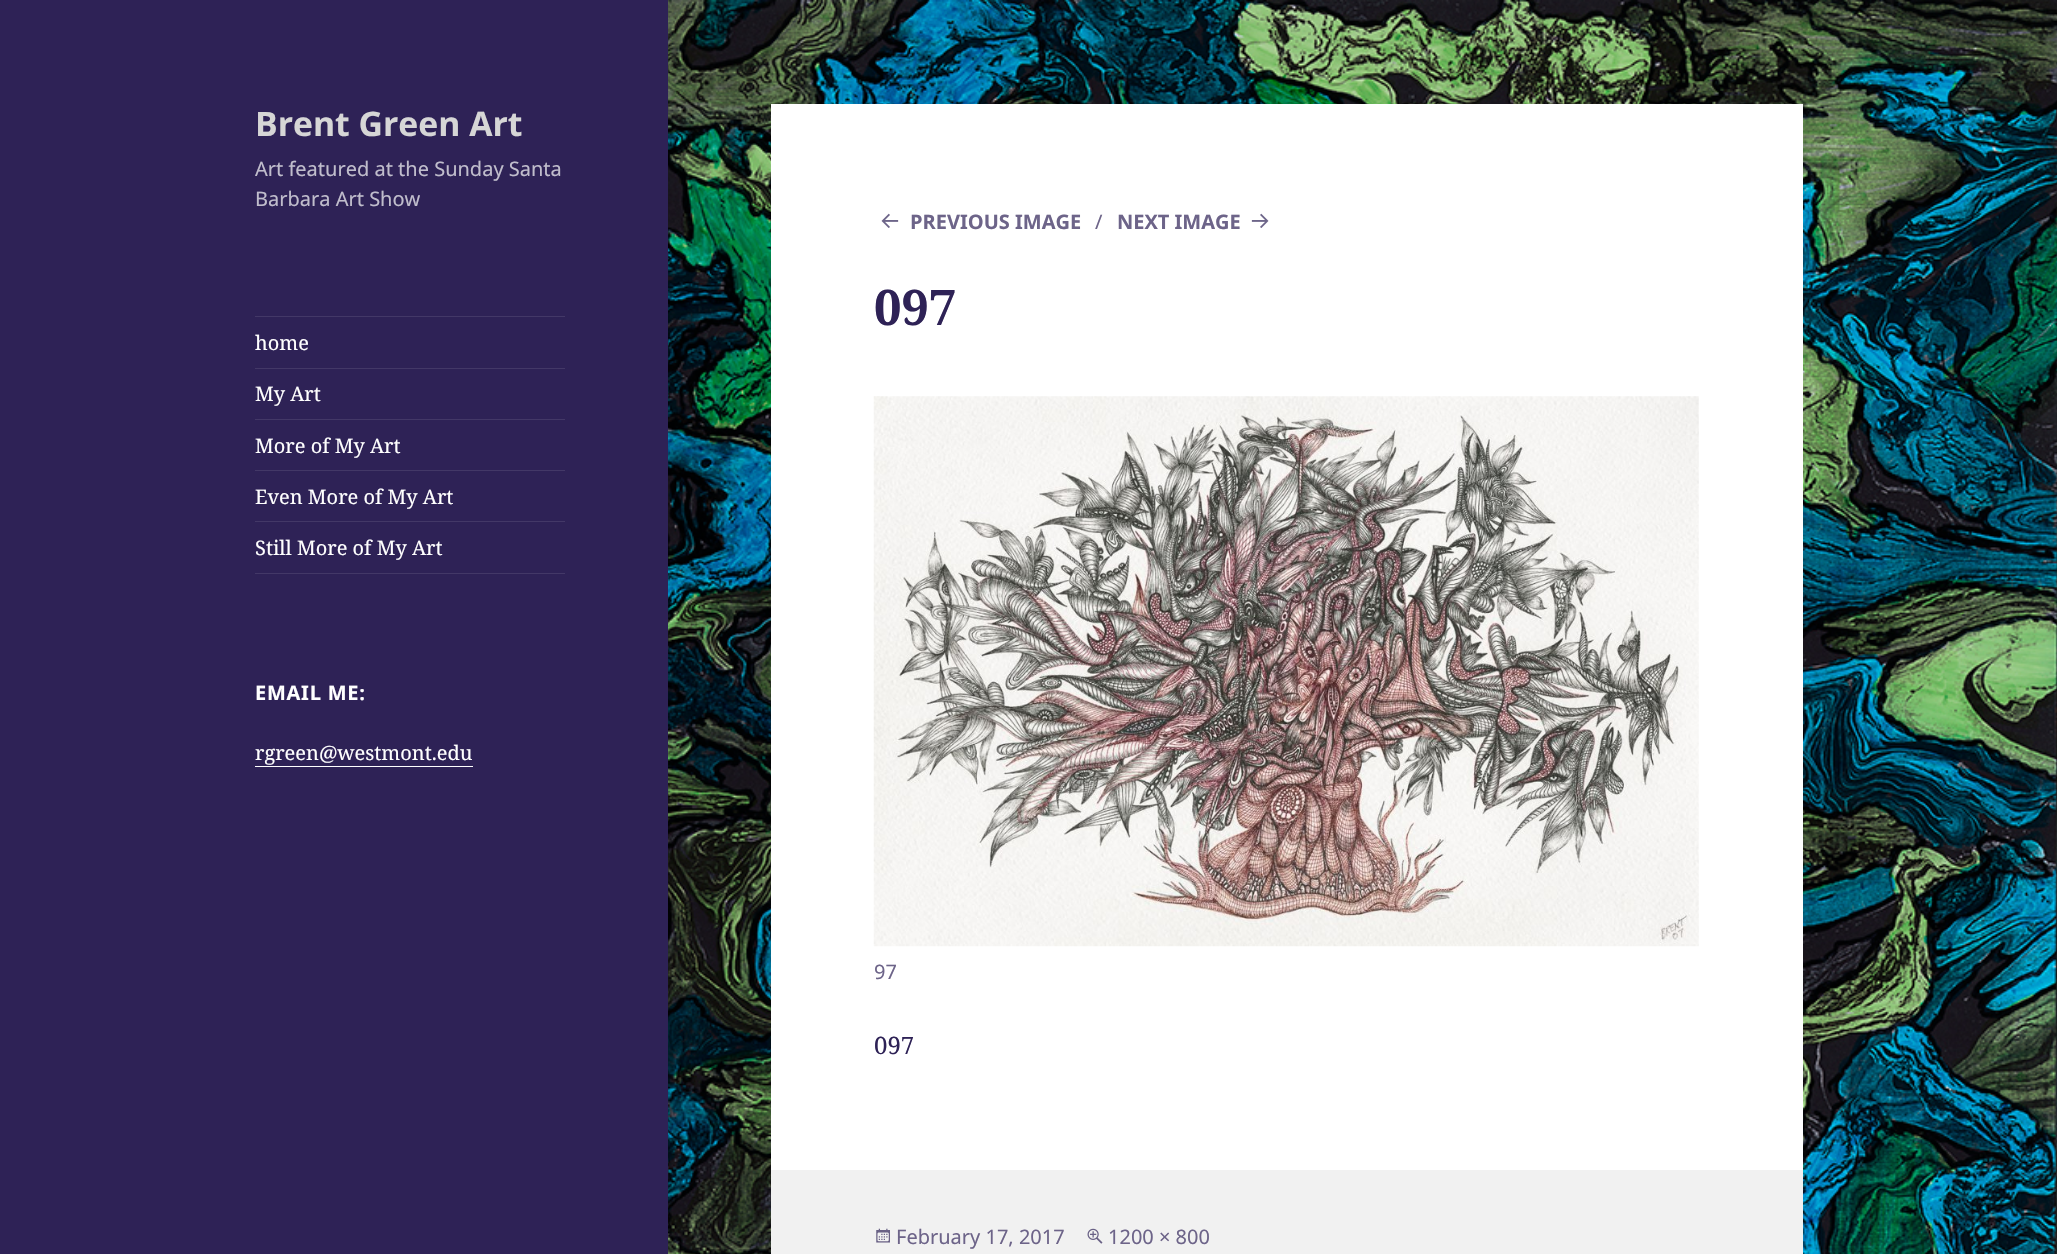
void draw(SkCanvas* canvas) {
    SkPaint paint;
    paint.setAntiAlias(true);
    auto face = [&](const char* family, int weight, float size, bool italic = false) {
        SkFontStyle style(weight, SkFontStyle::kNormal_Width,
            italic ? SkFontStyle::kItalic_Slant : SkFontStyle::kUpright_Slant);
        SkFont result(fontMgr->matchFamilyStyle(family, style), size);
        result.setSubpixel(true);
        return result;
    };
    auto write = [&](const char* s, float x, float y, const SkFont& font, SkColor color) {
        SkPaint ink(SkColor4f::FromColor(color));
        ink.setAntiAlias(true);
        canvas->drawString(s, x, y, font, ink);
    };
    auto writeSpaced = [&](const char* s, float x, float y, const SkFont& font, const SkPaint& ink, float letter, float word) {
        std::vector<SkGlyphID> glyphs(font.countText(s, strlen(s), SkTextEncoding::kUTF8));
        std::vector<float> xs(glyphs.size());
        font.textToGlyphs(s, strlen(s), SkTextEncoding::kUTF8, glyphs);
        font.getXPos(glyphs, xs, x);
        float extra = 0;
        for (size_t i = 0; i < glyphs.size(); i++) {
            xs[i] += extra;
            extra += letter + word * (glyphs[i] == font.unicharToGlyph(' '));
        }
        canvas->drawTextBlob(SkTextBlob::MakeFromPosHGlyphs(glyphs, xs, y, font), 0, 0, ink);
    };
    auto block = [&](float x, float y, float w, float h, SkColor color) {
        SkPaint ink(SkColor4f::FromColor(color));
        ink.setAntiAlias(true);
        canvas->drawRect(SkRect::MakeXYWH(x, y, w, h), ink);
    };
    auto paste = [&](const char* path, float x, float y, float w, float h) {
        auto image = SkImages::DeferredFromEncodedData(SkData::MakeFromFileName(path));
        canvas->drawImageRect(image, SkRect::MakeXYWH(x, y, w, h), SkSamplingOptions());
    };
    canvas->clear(SK_ColorWHITE);
    paste("pic1.png", 668, 0, 1389, 1254);
    block(0, 0, 668, 1254, SkColorSetRGB(46, 34, 86));
    auto kFont1 = face("Noto Sans", 700, 33.75f);
    write("Brent Green Art", 255, 136, kFont1, SkColorSetRGB(214, 214, 214));
    auto kFont2 = face("Noto Sans", 400, 20);
    write("Art featured at the Sunday Santa", 255, 176, kFont2, SkColorSetRGB(192, 189, 204));
    write("Barbara Art Show", 255, 206, kFont2, SkColorSetRGB(192, 189, 204));
    block(255, 316, 310, 1, SkColorSetRGB(67, 56, 103));
    block(255, 573, 310, 1, SkColorSetRGB(67, 56, 103));
    auto kFont3 = face("Noto Serif", 400, 20);
    write("home", 255, 350, kFont3, SK_ColorWHITE);
    block(255, 368, 310, 1, SkColorSetRGB(67, 56, 103));
    write("My Art", 255, 401, kFont3, SK_ColorWHITE);
    block(255, 419, 310, 1, SkColorSetRGB(67, 56, 103));
    write("More of My Art", 255, 453, kFont3, SK_ColorWHITE);
    block(255, 470, 310, 1, SkColorSetRGB(67, 56, 103));
    write("Even More of My Art", 255, 504, kFont3, SK_ColorWHITE);
    block(255, 521, 310, 1, SkColorSetRGB(67, 56, 103));
    write("Still More of My Art", 255, 555, kFont3, SK_ColorWHITE);
    auto kFont4 = face("Noto Sans", 700, 20);
    paint.setColor(SK_ColorWHITE);
    writeSpaced("EMAIL ME:", 255, 700, kFont4, paint, 0.75f, 0);
    write("rgreen@westmont.edu", 255, 760, kFont3, SK_ColorWHITE);
    block(255, 766, 218, 1, SK_ColorWHITE);
    block(771, 104, 1032, 1066, SK_ColorWHITE);
    paste("pic2.png", 881, 213, 18, 15);
    write("PREVIOUS IMAGE", 910, 229, kFont4, SkColorSetRGB(109, 100, 137));
    write("∕", 1095, 229, kFont2, SkColorSetRGB(109, 100, 137));
    write("NEXT IMAGE", 1117, 229, kFont4, SkColorSetRGB(109, 100, 137));
    paste("pic3.png", 1251, 213, 18, 15);
    auto kFont5 = face("Noto Serif", 700, 49);
    write("097", 874, 325, kFont5, SkColorSetRGB(46, 34, 86));
    paste("pic4.png", 873, 396, 826, 551);
    write("97", 874, 979, kFont2, SkColorSetRGB(109, 100, 137));
    auto kFont6 = face("Noto Serif", 400, 24);
    write("097", 874, 1054, kFont6, SkColorSetRGB(46, 34, 86));
    block(771, 1170, 1032, 84, SkColorSetRGB(241, 241, 241));
    paste("pic5.png", 876, 1228, 14, 15);
    write("February 17, 2017", 896, 1244, kFont2, SkColorSetRGB(109, 100, 137));
    paste("pic6.png", 1087, 1228, 16, 16);
    write("1200 × 800", 1108, 1244, kFont2, SkColorSetRGB(109, 100, 137));
}
